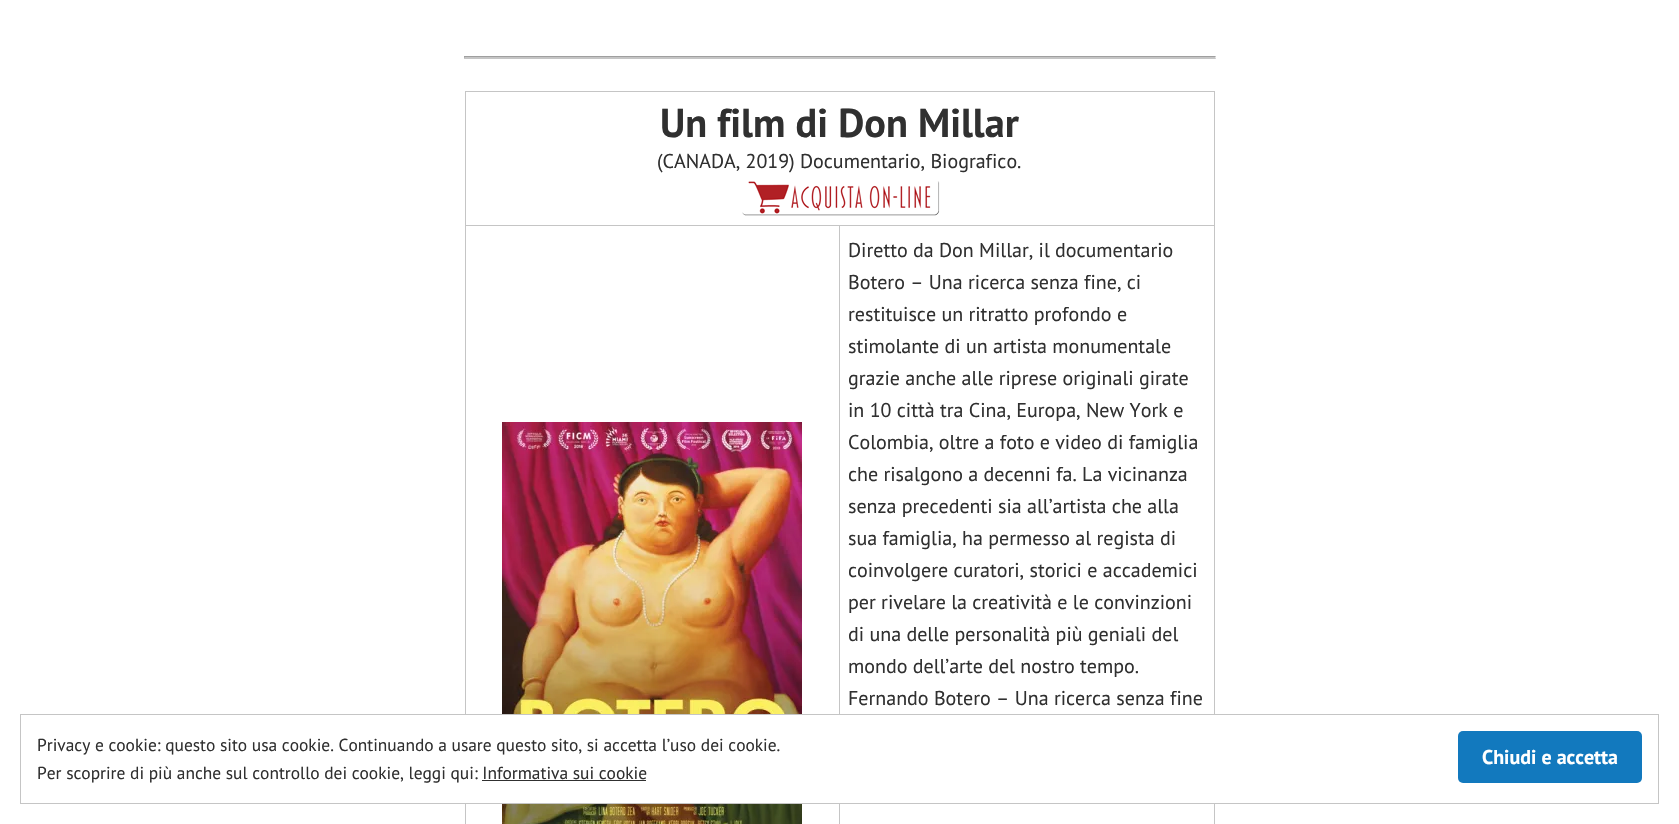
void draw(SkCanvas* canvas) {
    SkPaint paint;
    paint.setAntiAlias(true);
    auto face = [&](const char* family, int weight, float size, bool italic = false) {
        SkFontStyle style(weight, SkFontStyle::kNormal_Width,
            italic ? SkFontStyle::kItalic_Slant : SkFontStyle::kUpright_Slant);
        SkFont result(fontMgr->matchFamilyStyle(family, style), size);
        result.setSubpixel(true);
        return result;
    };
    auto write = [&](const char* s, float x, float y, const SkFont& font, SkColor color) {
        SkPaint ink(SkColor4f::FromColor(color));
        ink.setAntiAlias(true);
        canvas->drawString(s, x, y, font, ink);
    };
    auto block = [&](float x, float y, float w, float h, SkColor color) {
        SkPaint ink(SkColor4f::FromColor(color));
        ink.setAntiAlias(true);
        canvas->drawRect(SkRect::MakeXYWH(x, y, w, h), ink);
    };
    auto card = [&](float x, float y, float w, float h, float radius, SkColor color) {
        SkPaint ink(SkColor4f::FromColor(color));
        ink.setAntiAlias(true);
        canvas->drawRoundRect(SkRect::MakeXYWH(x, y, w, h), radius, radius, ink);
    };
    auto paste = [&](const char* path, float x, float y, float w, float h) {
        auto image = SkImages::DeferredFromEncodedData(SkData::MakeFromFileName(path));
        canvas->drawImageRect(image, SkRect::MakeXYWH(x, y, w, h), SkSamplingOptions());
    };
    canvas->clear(SK_ColorWHITE);
    block(464, 56, 752, 1, SkColorSetRGB(159, 159, 159));
    paint.setColor(SkColorSetRGB(238, 238, 238));
    canvas->drawPath(SkPathBuilder().moveTo(1216, 56).lineTo(1216, 59).lineTo(1215, 57).close().detach(), paint);
    paint.setColor(SkColorSetRGB(197, 197, 197));
    canvas->drawPath(SkPathBuilder().moveTo(1216, 59).lineTo(464, 59).lineTo(465, 57).lineTo(1215, 57).close().detach(), paint);
    paint.setColor(SkColorSetRGB(159, 159, 159));
    canvas->drawPath(SkPathBuilder().moveTo(464, 59).lineTo(464, 56).lineTo(465, 57).close().detach(), paint);
    block(465, 91, 750, 1, SkColorSetRGB(197, 197, 197));
    block(839, 225, 376, 1, SkColorSetRGB(197, 197, 197));
    block(1214, 225, 1, 599, SkColorSetRGB(197, 197, 197));
    block(1214, 91, 1, 135, SkColorSetRGB(197, 197, 197));
    block(839, 225, 1, 599, SkColorSetRGB(197, 197, 197));
    block(465, 225, 375, 1, SkColorSetRGB(197, 197, 197));
    block(465, 225, 1, 599, SkColorSetRGB(197, 197, 197));
    block(465, 91, 1, 135, SkColorSetRGB(197, 197, 197));
    auto kFont1 = face("PT Sans", 700, 40.25f);
    write("Un film di Don Millar", 660, 137, kFont1, SkColorSetRGB(48, 48, 48));
    auto kFont2 = face("PT Sans", 400, 20);
    write("(CANADA, 2019) Documentario, Biografico.", 657, 168, kFont2, SkColorSetRGB(48, 48, 48));
    paste("pic1.png", 742, 181, 198, 35);
    paste("pic2.png", 502, 422, 300, 402);
    write("Diretto da Don Millar, il documentario", 848, 257, kFont2, SkColorSetRGB(48, 48, 48));
    write("Botero – Una ricerca senza fine, ci", 848, 289, kFont2, SkColorSetRGB(48, 48, 48));
    write("restituisce un ritratto profondo e", 848, 321, kFont2, SkColorSetRGB(48, 48, 48));
    write("stimolante di un artista monumentale", 848, 353, kFont2, SkColorSetRGB(48, 48, 48));
    write("grazie anche alle riprese originali girate", 848, 385, kFont2, SkColorSetRGB(48, 48, 48));
    write("in 10 città tra Cina, Europa, New York e", 848, 417, kFont2, SkColorSetRGB(48, 48, 48));
    write("Colombia, oltre a foto e video di famiglia", 848, 449, kFont2, SkColorSetRGB(48, 48, 48));
    write("che risalgono a decenni fa. La vicinanza", 848, 481, kFont2, SkColorSetRGB(48, 48, 48));
    write("senza precedenti sia all’artista che alla", 848, 513, kFont2, SkColorSetRGB(48, 48, 48));
    write("sua famiglia, ha permesso al regista di", 848, 545, kFont2, SkColorSetRGB(48, 48, 48));
    write("coinvolgere curatori, storici e accademici", 848, 577, kFont2, SkColorSetRGB(48, 48, 48));
    write("per rivelare la creatività e le convinzioni", 848, 609, kFont2, SkColorSetRGB(48, 48, 48));
    write("di una delle personalità più geniali del", 848, 641, kFont2, SkColorSetRGB(48, 48, 48));
    write("mondo dell’arte del nostro tempo.", 848, 673, kFont2, SkColorSetRGB(48, 48, 48));
    write("Fernando Botero – Una ricerca senza fine", 848, 705, kFont2, SkColorSetRGB(48, 48, 48));
    block(465, 715, 750, 88, SK_ColorWHITE);
    paint.setStyle(SkPaint::kStroke_Style);
    paint.setStrokeWidth(1);
    paint.setColor(SkColorSetRGB(197, 197, 197));
    canvas->drawRect(SkRect::MakeXYWH(20.5f, 714.5f, 1638, 89), paint);
    auto kFont3 = face("PT Sans", 400, 17.4f);
    write("Privacy e cookie: questo sito usa cookie. Continuando a usare questo sito, si accetta l’uso dei cookie.", 37, 751, kFont3, SkColorSetRGB(48, 48, 48));
    card(1458, 731, 184, 52, 5, SkColorSetRGB(18, 121, 190));
    auto kFont4 = face("PT Sans", 700, 20);
    write("Chiudi e accetta", 1482, 764, kFont4, SK_ColorWHITE);
    write("Per scoprire di più anche sul controllo dei cookie, leggi qui: Informativa sui cookie", 37, 779, kFont3, SkColorSetRGB(48, 48, 48));
    block(482, 780, 164, 1, SkColorSetRGB(48, 48, 48));
}
